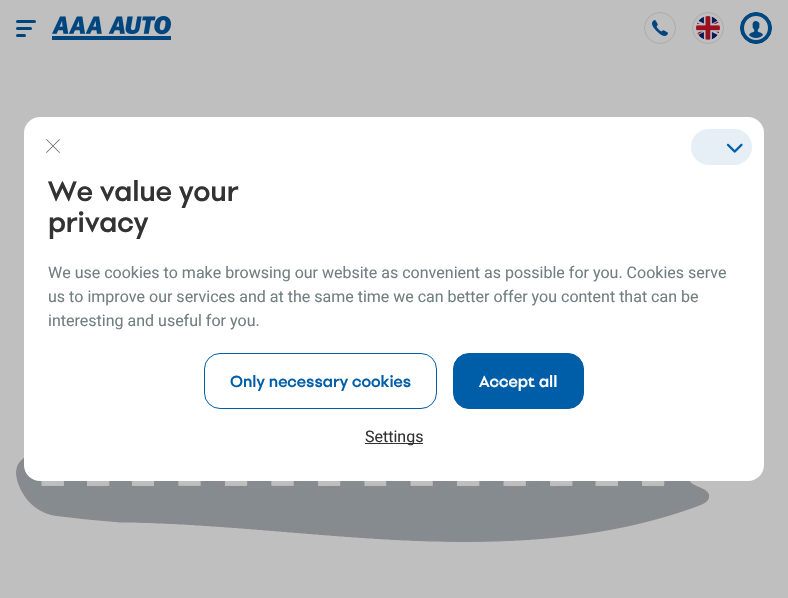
void draw(SkCanvas* canvas) {
    SkPaint paint;
    paint.setAntiAlias(true);
    auto face = [&](const char* family, int weight, float size, bool italic = false) {
        SkFontStyle style(weight, SkFontStyle::kNormal_Width,
            italic ? SkFontStyle::kItalic_Slant : SkFontStyle::kUpright_Slant);
        SkFont result(fontMgr->matchFamilyStyle(family, style), size);
        result.setSubpixel(true);
        return result;
    };
    auto write = [&](const char* s, float x, float y, const SkFont& font, SkColor color) {
        SkPaint ink(SkColor4f::FromColor(color));
        ink.setAntiAlias(true);
        canvas->drawString(s, x, y, font, ink);
    };
    auto block = [&](float x, float y, float w, float h, SkColor color) {
        SkPaint ink(SkColor4f::FromColor(color));
        ink.setAntiAlias(true);
        canvas->drawRect(SkRect::MakeXYWH(x, y, w, h), ink);
    };
    auto card = [&](float x, float y, float w, float h, float radius, SkColor color) {
        SkPaint ink(SkColor4f::FromColor(color));
        ink.setAntiAlias(true);
        canvas->drawRoundRect(SkRect::MakeXYWH(x, y, w, h), radius, radius, ink);
    };
    auto paste = [&](const char* path, float x, float y, float w, float h) {
        auto image = SkImages::DeferredFromEncodedData(SkData::MakeFromFileName(path));
        canvas->drawImageRect(image, SkRect::MakeXYWH(x, y, w, h), SkSamplingOptions());
    };
    canvas->clear(SkColorSetRGB(191, 191, 191));
    card(16, 20, 20, 3, 1.5f, SkColorSetRGB(0, 70, 126));
    card(16, 27, 16, 3, 1.5f, SkColorSetRGB(0, 70, 126));
    card(16, 34, 10, 3, 1.5f, SkColorSetRGB(0, 70, 126));
    paste("pic1.png", 52, 16, 119, 24);
    paint.setStyle(SkPaint::kStroke_Style);
    paint.setStrokeWidth(1);
    paint.setColor(SkColorSetRGB(171, 171, 171));
    canvas->drawCircle(660, 28, 15.5f, paint);
    paste("pic2.png", 652, 20, 16, 16);
    canvas->drawCircle(708, 28, 15.5f, paint);
    paste("pic3.png", 696, 16, 24, 24);
    paint.setStyle(SkPaint::kFill_Style);
    paint.setColor(SkColorSetRGB(0, 70, 126));
    canvas->drawCircle(756, 28, 15.5f, paint);
    paint.setStyle(SkPaint::kStroke_Style);
    canvas->drawCircle(756, 28, 15.5f, paint);
    paste("pic4.png", 744, 16, 24, 24);
    paste("pic5.png", 16, 457, 693, 85);
    card(24, 117, 740, 364, 16, SK_ColorWHITE);
    card(691, 129, 61, 36, 18, SkColorSetRGB(230, 239, 246));
    paste("pic6.png", 726, 143, 17, 10);
    paste("pic7.png", 46, 139, 14, 14);
    auto kFont1 = face("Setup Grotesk", 500, 28);
    write("We value your", 48, 201, kFont1, SkColorSetRGB(51, 51, 51));
    write("privacy", 48, 232, kFont1, SkColorSetRGB(51, 51, 51));
    auto kFont2 = face("Roboto", 400, 16);
    write("We use cookies to make browsing our website as convenient as possible for you. Cookies serve", 48, 278, kFont2, SkColorSetRGB(114, 127, 128));
    write("us to improve our services and at the same time we can better offer you content that can be", 48, 302, kFont2, SkColorSetRGB(114, 127, 128));
    write("interesting and useful for you.", 48, 326, kFont2, SkColorSetRGB(114, 127, 128));
    paint.setColor(SkColorSetRGB(0, 93, 168));
    canvas->drawRoundRect(SkRect::MakeXYWH(204.5f, 353.5f, 232, 55), 15.5f, 15.5f, paint);
    auto kFont3 = face("Setup Grotesk", 500, 16);
    write("Only necessary cookies", 230, 387, kFont3, SkColorSetRGB(0, 93, 168));
    paint.setStyle(SkPaint::kFill_Style);
    canvas->drawRoundRect(SkRect::MakeXYWH(453.5f, 353.5f, 130, 55), 15.5f, 15.5f, paint);
    paint.setStyle(SkPaint::kStroke_Style);
    canvas->drawRoundRect(SkRect::MakeXYWH(453.5f, 353.5f, 130, 55), 15.5f, 15.5f, paint);
    write("Accept all", 479, 387, kFont3, SK_ColorWHITE);
    block(365, 443, 58, 1, SkColorSetRGB(51, 51, 51));
    write("Settings", 365, 442, kFont2, SkColorSetRGB(51, 51, 51));
}
